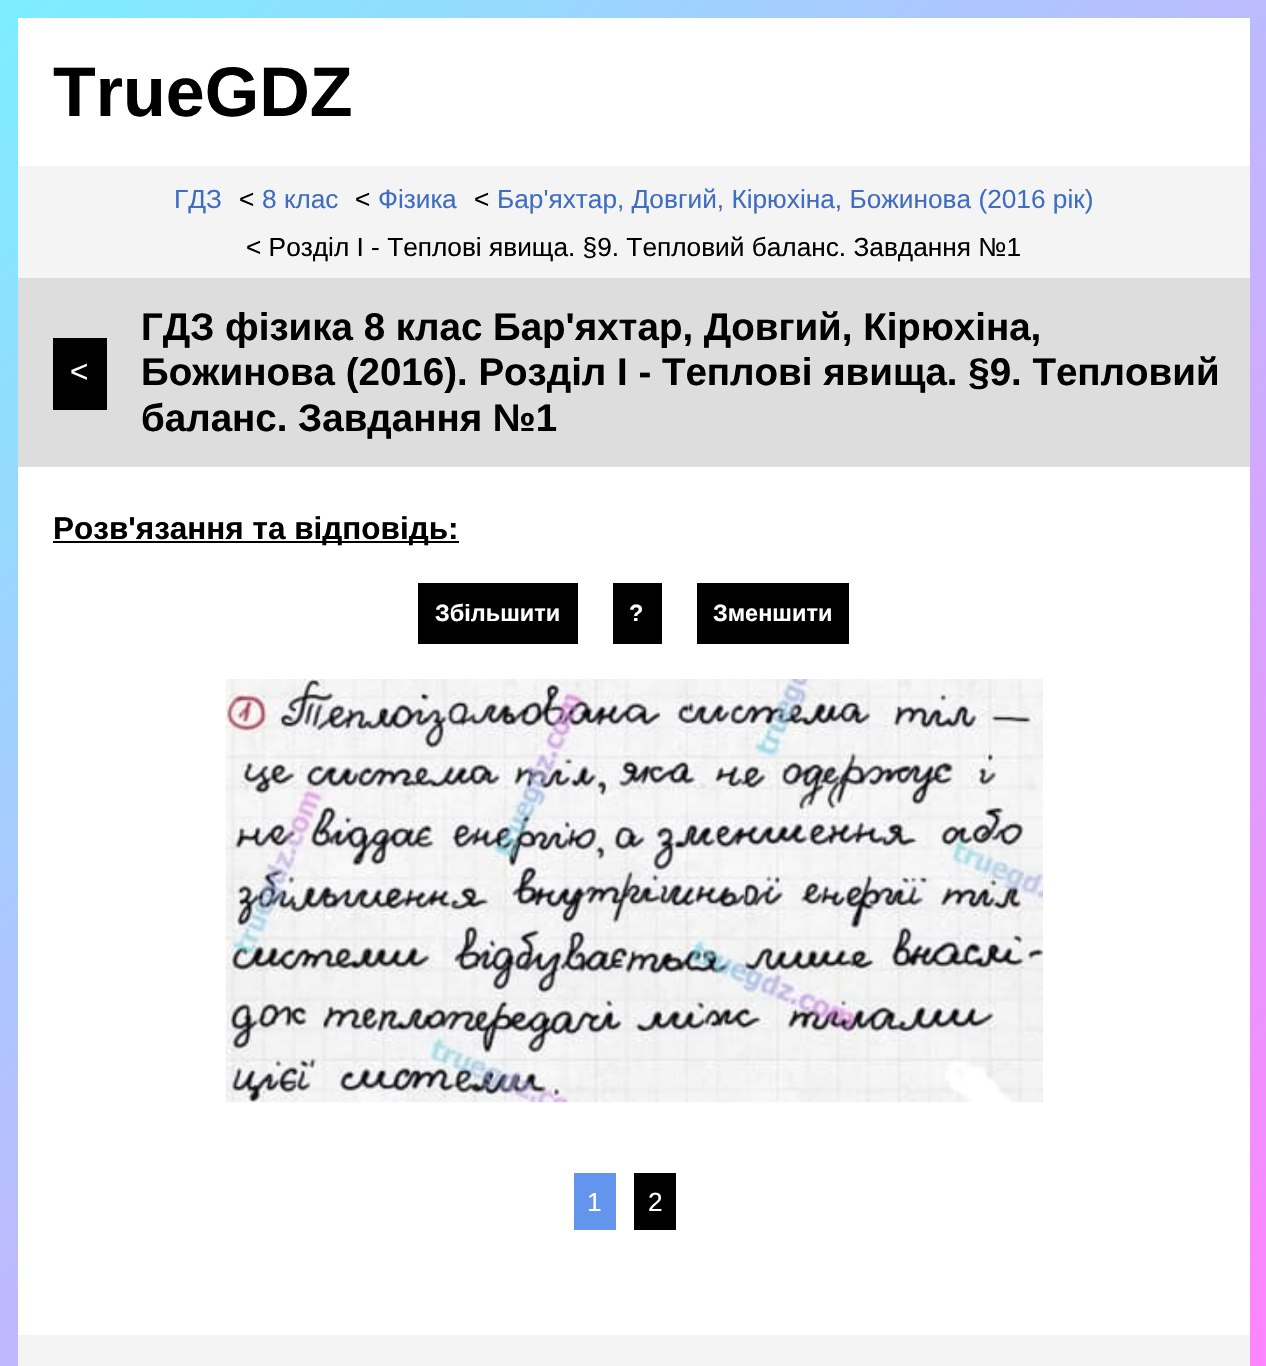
void draw(SkCanvas* canvas) {
    SkPaint paint;
    paint.setAntiAlias(true);
    auto face = [&](const char* family, int weight, float size, bool italic = false) {
        SkFontStyle style(weight, SkFontStyle::kNormal_Width,
            italic ? SkFontStyle::kItalic_Slant : SkFontStyle::kUpright_Slant);
        SkFont result(fontMgr->matchFamilyStyle(family, style), size);
        result.setSubpixel(true);
        return result;
    };
    auto write = [&](const char* s, float x, float y, const SkFont& font, SkColor color) {
        SkPaint ink(SkColor4f::FromColor(color));
        ink.setAntiAlias(true);
        canvas->drawString(s, x, y, font, ink);
    };
    auto block = [&](float x, float y, float w, float h, SkColor color) {
        SkPaint ink(SkColor4f::FromColor(color));
        ink.setAntiAlias(true);
        canvas->drawRect(SkRect::MakeXYWH(x, y, w, h), ink);
    };
    auto paste = [&](const char* path, float x, float y, float w, float h) {
        auto image = SkImages::DeferredFromEncodedData(SkData::MakeFromFileName(path));
        canvas->drawImageRect(image, SkRect::MakeXYWH(x, y, w, h), SkSamplingOptions());
    };
    canvas->clear(SK_ColorWHITE);
    {
        const SkColor colors[] = {SkColorSetRGB(124, 238, 255), SkColorSetRGB(255, 132, 253)};
        const float stops[] = {0, 1};
        const SkPoint ends[] = {{-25, 25}, {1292, 1342}};
        paint.setShader(SkGradientShader::MakeLinear(ends, colors, stops, 2, SkTileMode::kClamp));
        paint.setAlpha(255);
    }
    canvas->drawRect(SkRect::MakeXYWH(0, 0, 1266, 1366), paint);
    block(18, 18, 1232, 1317, SK_ColorWHITE);
    auto kFont1 = face("Liberation Sans", 700, 70);
    write("TrueGDZ", 53, 116, kFont1, SK_ColorBLACK);
    block(18, 166, 1232, 112, SkColorSetRGB(244, 244, 244));
    auto kFont2 = face("Liberation Sans", 400, 26.25f);
    write("ГДЗ", 174, 208, kFont2, SkColorSetRGB(62, 109, 193));
    write("<", 239, 208, kFont2, SK_ColorBLACK);
    write("8 клас", 262, 208, kFont2, SkColorSetRGB(62, 109, 193));
    write("<", 355, 208, kFont2, SK_ColorBLACK);
    write("Фізика", 378, 208, kFont2, SkColorSetRGB(62, 109, 193));
    write("<", 474, 208, kFont2, SK_ColorBLACK);
    write("Бар'яхтар, Довгий, Кірюхіна, Божинова (2016 рік)", 497, 208, kFont2, SkColorSetRGB(62, 109, 193));
    write("< Розділ I - Теплові явища. §9. Тепловий баланс. Завдання №1", 246, 256, kFont2, SK_ColorBLACK);
    block(18, 278, 1232, 189, SkColorSetRGB(221, 221, 221));
    block(53, 338, 54, 72, SK_ColorBLACK);
    auto kFont3 = face("Liberation Sans", 400, 31.5f);
    write("<", 70, 382, kFont3, SK_ColorWHITE);
    auto kFont4 = face("Liberation Sans", 700, 38.5f);
    write("ГДЗ фізика 8 клас Бар'яхтар, Довгий, Кірюхіна,", 141, 340, kFont4, SK_ColorBLACK);
    write("Божинова (2016). Розділ I - Теплові явища. §9. Тепловий", 141, 385, kFont4, SK_ColorBLACK);
    write("баланс. Завдання №1", 141, 431, kFont4, SK_ColorBLACK);
    block(53, 541, 406, 2, SK_ColorBLACK);
    auto kFont5 = face("Liberation Sans", 700, 31.5f);
    write("Розв'язання та відповідь:", 53, 539, kFont5, SK_ColorBLACK);
    block(418, 583, 160, 61, SK_ColorBLACK);
    auto kFont6 = face("Liberation Sans", 700, 23.5f);
    write("Збільшити", 435, 621, kFont6, SK_ColorWHITE);
    block(613, 583, 49, 61, SK_ColorBLACK);
    write("?", 629, 621, kFont6, SK_ColorWHITE);
    block(697, 583, 152, 61, SK_ColorBLACK);
    write("Зменшити", 713, 621, kFont6, SK_ColorWHITE);
    paste("pic1.png", 225, 679, 818, 424);
    block(574, 1173, 42, 57, SkColorSetRGB(100, 149, 237));
    write("1", 587, 1211, kFont2, SK_ColorWHITE);
    block(634, 1173, 42, 57, SK_ColorBLACK);
    write("2", 648, 1211, kFont2, SK_ColorWHITE);
    block(18, 1335, 1232, 31, SkColorSetRGB(244, 244, 244));
}
